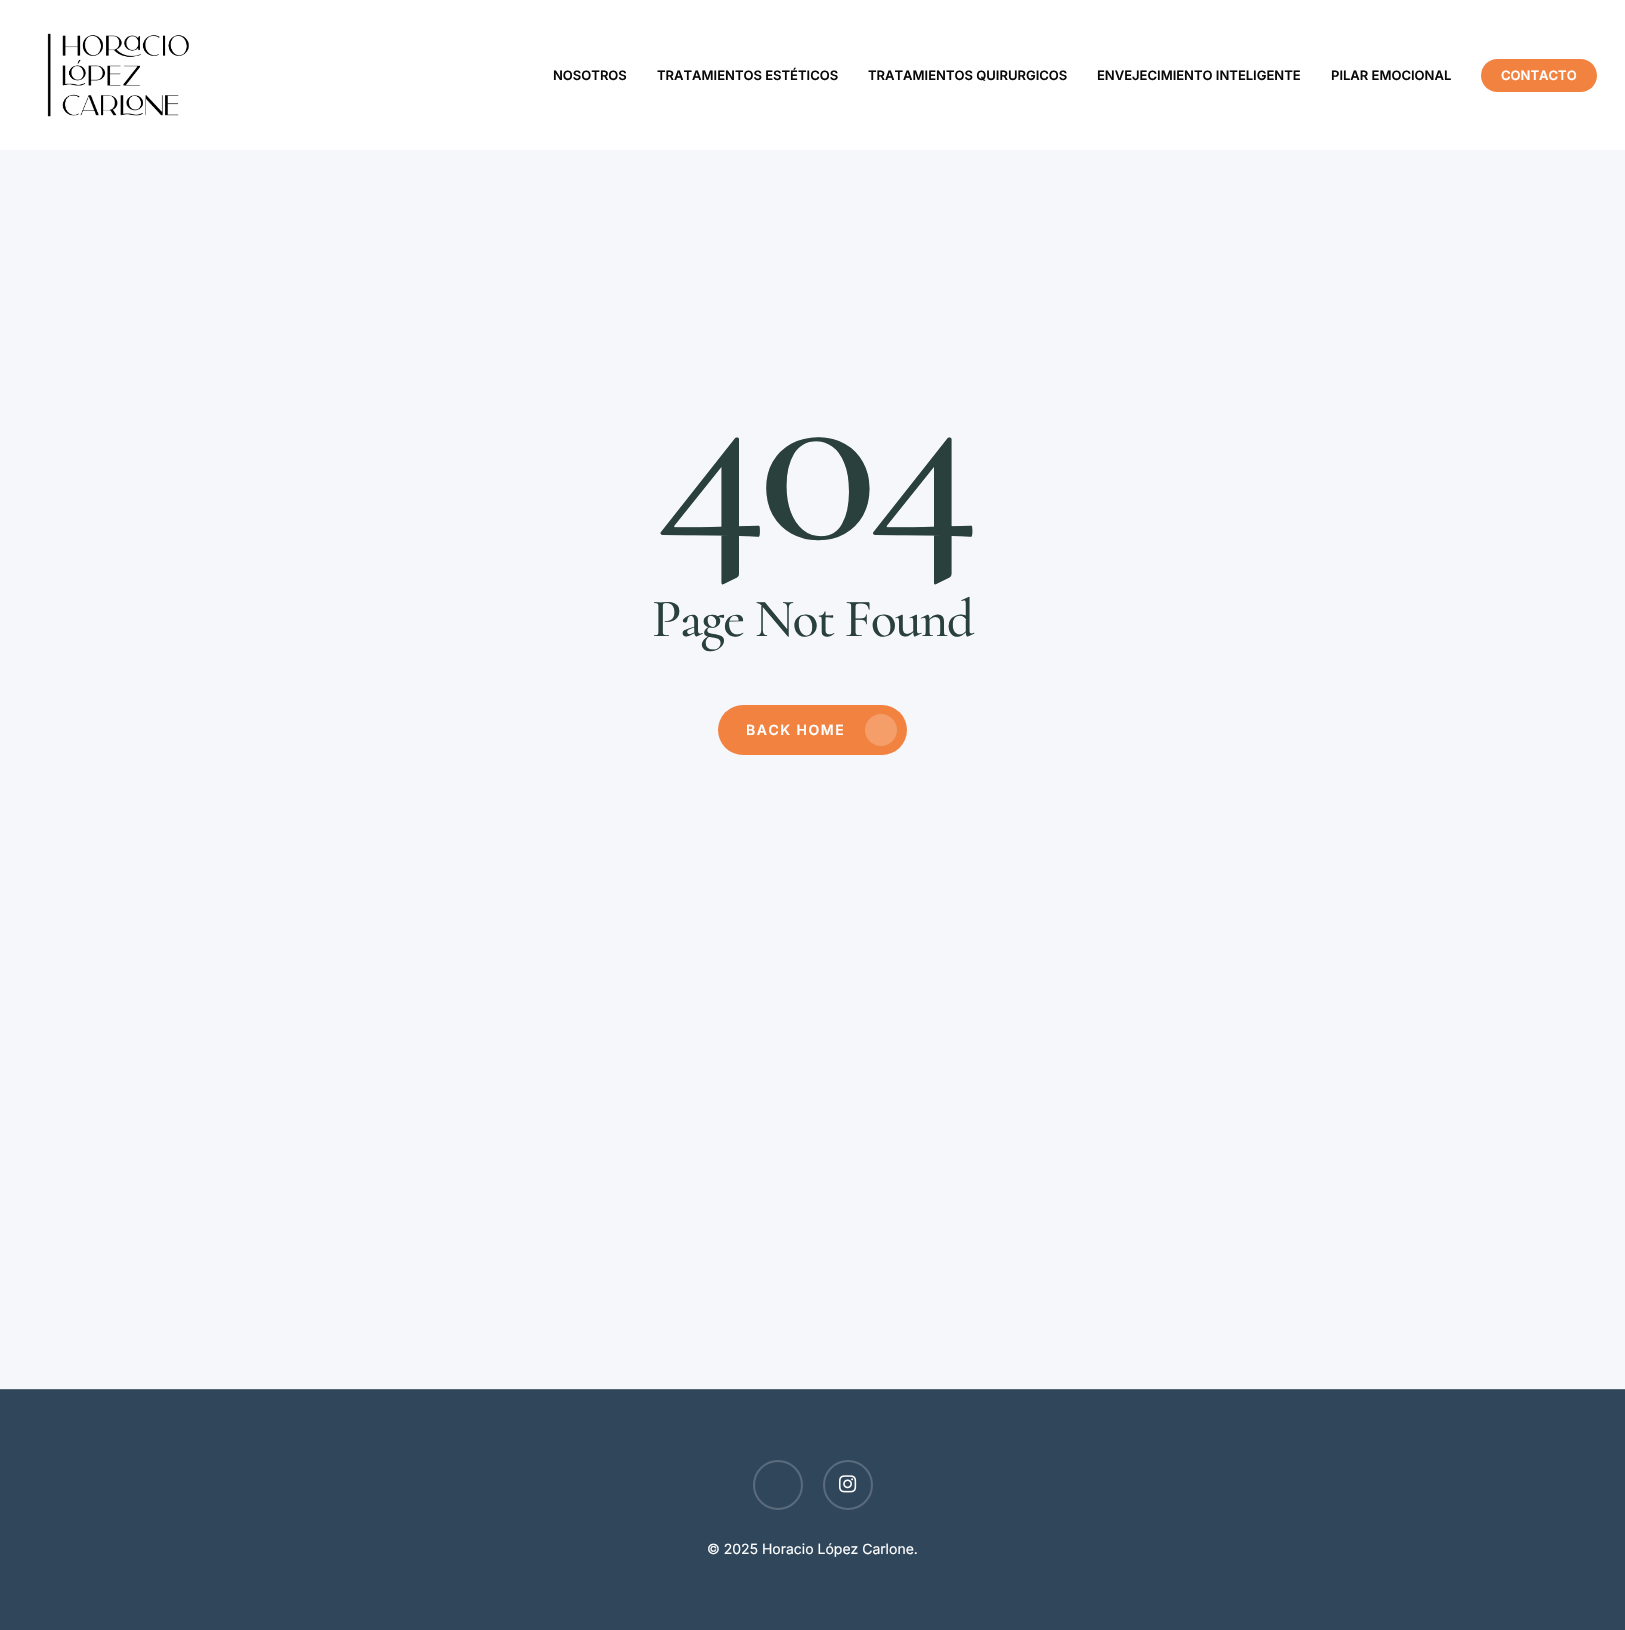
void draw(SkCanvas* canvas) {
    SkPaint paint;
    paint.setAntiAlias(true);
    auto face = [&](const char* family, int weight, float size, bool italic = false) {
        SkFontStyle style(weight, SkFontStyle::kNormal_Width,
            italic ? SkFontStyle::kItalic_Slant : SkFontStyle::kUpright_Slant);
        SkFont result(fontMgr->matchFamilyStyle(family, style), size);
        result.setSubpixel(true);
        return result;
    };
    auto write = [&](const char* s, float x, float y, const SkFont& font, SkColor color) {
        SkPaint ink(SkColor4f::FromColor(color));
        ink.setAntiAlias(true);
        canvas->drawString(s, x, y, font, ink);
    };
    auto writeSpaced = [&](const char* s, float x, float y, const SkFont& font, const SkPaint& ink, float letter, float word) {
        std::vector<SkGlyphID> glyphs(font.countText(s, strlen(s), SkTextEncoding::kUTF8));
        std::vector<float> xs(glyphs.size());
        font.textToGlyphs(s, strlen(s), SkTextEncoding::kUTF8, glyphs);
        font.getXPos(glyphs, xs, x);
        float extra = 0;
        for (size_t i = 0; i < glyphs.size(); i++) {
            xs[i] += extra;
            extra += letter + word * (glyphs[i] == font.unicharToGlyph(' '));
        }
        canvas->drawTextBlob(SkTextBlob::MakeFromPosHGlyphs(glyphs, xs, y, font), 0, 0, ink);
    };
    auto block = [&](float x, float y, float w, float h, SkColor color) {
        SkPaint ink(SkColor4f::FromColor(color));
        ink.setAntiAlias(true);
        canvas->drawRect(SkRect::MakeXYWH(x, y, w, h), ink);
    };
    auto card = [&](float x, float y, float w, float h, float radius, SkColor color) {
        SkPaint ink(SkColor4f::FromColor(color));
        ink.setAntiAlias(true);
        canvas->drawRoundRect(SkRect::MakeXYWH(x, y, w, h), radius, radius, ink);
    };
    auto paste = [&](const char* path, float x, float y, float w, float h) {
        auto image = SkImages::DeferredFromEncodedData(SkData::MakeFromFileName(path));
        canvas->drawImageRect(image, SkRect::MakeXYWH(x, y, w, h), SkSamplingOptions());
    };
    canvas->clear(SkColorSetRGB(246, 247, 251));
    block(0, 0, 1625, 150, SK_ColorWHITE);
    paste("pic1.png", 47, 33, 142, 84);
    auto kFont1 = face("Inter", 600, 13);
    write("NOSOTROS", 553, 80, kFont1, SkColorSetRGB(10, 10, 10));
    write("TRATAMIENTOS ESTÉTICOS", 657, 80, kFont1, SkColorSetRGB(10, 10, 10));
    write("TRATAMIENTOS QUIRURGICOS", 868, 80, kFont1, SkColorSetRGB(10, 10, 10));
    write("ENVEJECIMIENTO INTELIGENTE", 1097, 80, kFont1, SkColorSetRGB(10, 10, 10));
    write("PILAR EMOCIONAL", 1331, 80, kFont1, SkColorSetRGB(10, 10, 10));
    card(1481, 59, 116, 33, 16.5f, SkColorSetRGB(242, 130, 64));
    write("CONTACTO", 1501, 80, kFont1, SK_ColorWHITE);
    auto kFont2 = face("Cormorant", 500, 250);
    paint.setColor(SkColorSetRGB(42, 64, 60));
    writeSpaced("404", 655, 537, kFont2, paint, -10, 0);
    auto kFont3 = face("Cormorant", 500, 54);
    writeSpaced("Page Not Found", 652, 636, kFont3, paint, -1.6f, 0);
    card(718, 705, 189, 50, 25, SkColorSetRGB(242, 130, 64));
    auto kFont4 = face("Inter", 600, 14);
    paint.setColor(SK_ColorWHITE);
    writeSpaced("BACK HOME", 746, 735, kFont4, paint, 1.5f, 0);
    paint.setColor(SkColorSetRGB(245, 158, 106));
    canvas->drawCircle(881, 730, 16, paint);
    block(0, 1390, 1625, 240, SkColorSetRGB(48, 70, 91));
    block(0, 1389, 1625, 1, SkColorSetRGB(85, 103, 121));
    paint.setStyle(SkPaint::kStroke_Style);
    paint.setStrokeWidth(2);
    paint.setColor(SkColorSetRGB(89, 107, 124));
    canvas->drawCircle(778, 1485, 24, paint);
    paste("pic2.png", 839, 1475, 18, 18);
    canvas->drawCircle(848, 1485, 24, paint);
    auto kFont5 = face("Inter", 400, 14);
    write("© 2025 Horacio López Carlone.", 707, 1554, kFont5, SK_ColorWHITE);
}
